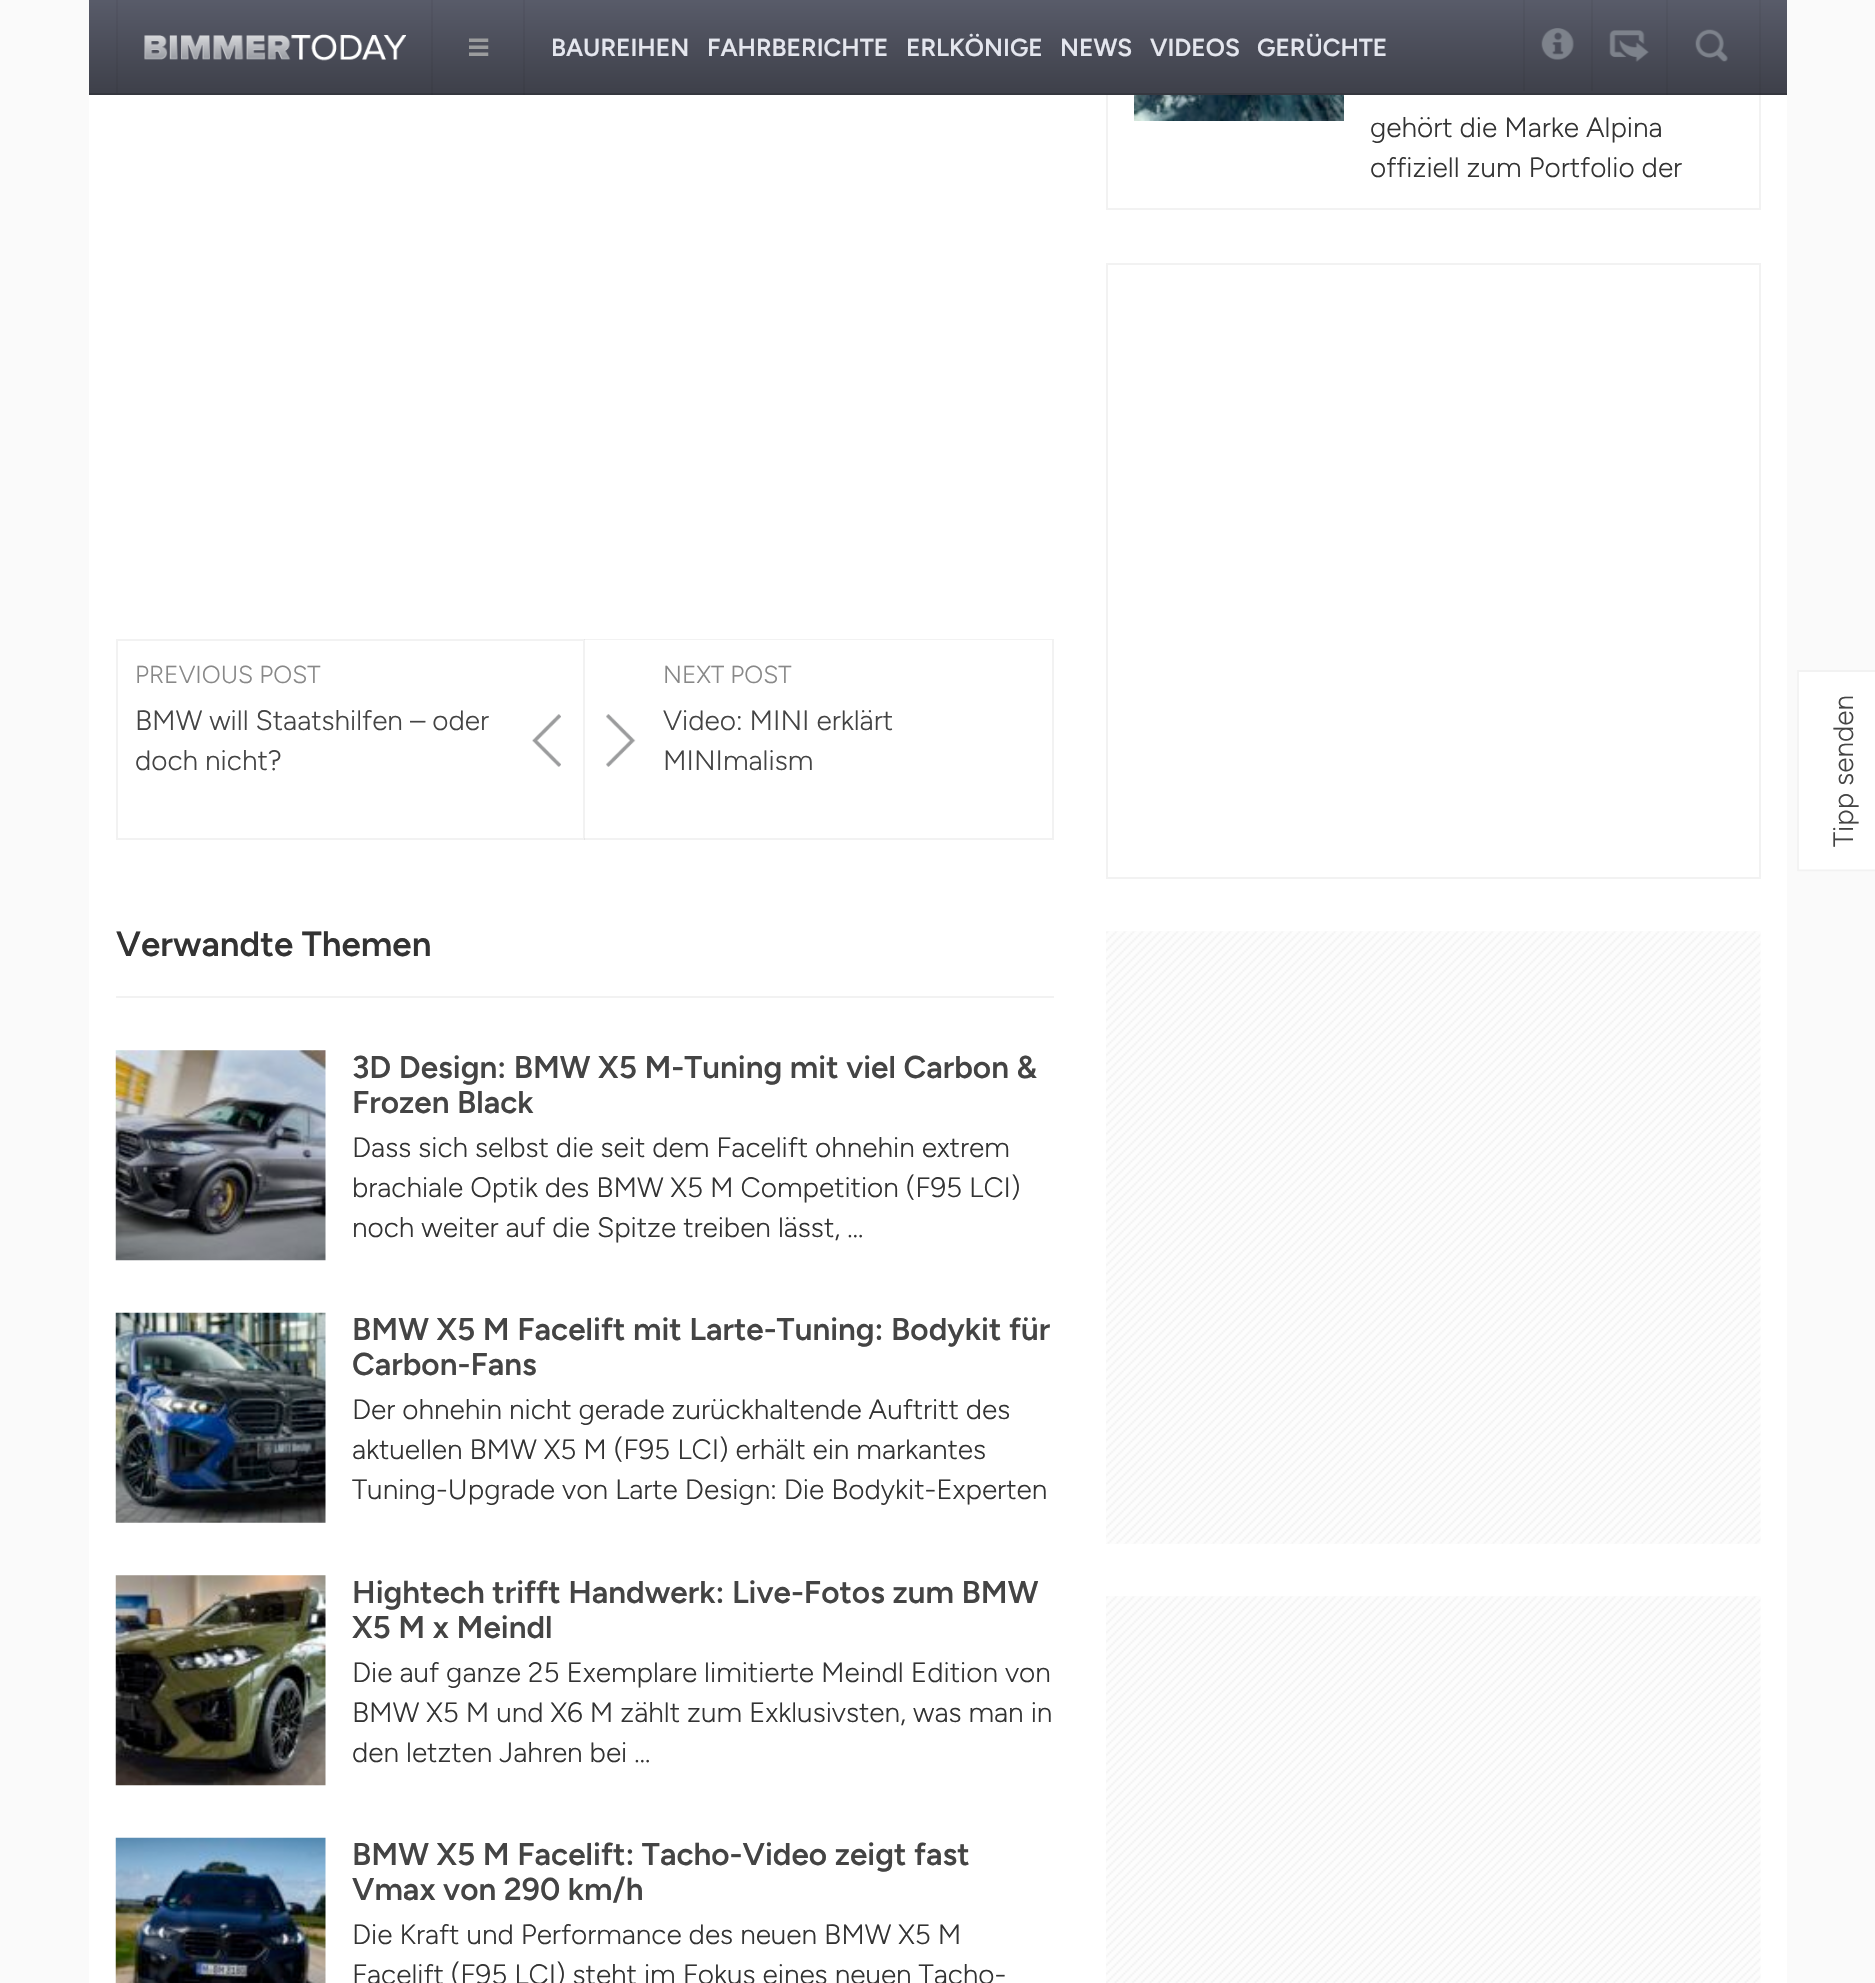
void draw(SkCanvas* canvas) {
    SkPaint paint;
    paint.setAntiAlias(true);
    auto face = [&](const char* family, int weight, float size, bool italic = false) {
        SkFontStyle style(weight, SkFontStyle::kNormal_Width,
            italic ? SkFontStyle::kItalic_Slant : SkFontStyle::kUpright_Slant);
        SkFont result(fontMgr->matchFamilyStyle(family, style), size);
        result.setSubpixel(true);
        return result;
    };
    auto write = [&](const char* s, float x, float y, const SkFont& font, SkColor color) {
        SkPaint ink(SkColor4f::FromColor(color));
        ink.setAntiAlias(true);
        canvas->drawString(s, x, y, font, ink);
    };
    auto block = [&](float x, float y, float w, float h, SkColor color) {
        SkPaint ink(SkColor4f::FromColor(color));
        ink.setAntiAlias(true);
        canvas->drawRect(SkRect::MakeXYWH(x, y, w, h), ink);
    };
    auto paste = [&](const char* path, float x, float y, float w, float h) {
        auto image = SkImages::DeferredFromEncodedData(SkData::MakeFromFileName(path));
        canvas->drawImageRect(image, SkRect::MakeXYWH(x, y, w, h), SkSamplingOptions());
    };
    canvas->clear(SkColorSetRGB(250, 250, 250));
    block(89, 95, 1698, 1888, SK_ColorWHITE);
    paint.setStyle(SkPaint::kStroke_Style);
    paint.setStrokeWidth(2);
    paint.setColor(SkColorSetRGB(242, 242, 242));
    canvas->drawRect(SkRect::MakeXYWH(1107, -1, 653, 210), paint);
    paint.setStyle(SkPaint::kFill_Style);
    {
        const SkColor colors[] = {SkColorSetRGB(88, 91, 105), SkColorSetRGB(63, 65, 75)};
        const float stops[] = {0.01f, 0.96f};
        const SkPoint ends[] = {{938, 0}, {938, 93}};
        paint.setShader(SkGradientShader::MakeLinear(ends, colors, stops, 2, SkTileMode::kClamp));
        paint.setAlpha(255);
    }
    canvas->drawRect(SkRect::MakeXYWH(89, 0, 1698, 93), paint);
    {
        const SkColor colors[] = {SkColorSetRGB(84, 86, 100), SkColorSetRGB(60, 62, 71)};
        const float stops[] = {0.01f, 0.96f};
        const SkPoint ends[] = {{938, 0}, {938, 93}};
        paint.setShader(SkGradientShader::MakeLinear(ends, colors, stops, 2, SkTileMode::kClamp));
        paint.setAlpha(255);
    }
    canvas->drawRect(SkRect::MakeXYWH(431, 0, 2, 93), paint);
    canvas->drawRect(SkRect::MakeXYWH(523, 0, 2, 93), paint);
    canvas->drawRect(SkRect::MakeXYWH(116, 0, 2, 93), paint);
    block(89, 93, 1698, 2, SkColorSetRGB(53, 55, 63));
    block(431, 93, 2, 2, SkColorSetRGB(50, 52, 60));
    block(523, 93, 2, 2, SkColorSetRGB(50, 52, 60));
    paste("pic1.png", 144, 34, 262, 27);
    paste("pic2.png", 469, 38, 20, 18);
    auto kFont1 = face("Figtree", 600, 24.5f);
    write("BAUREIHEN", 551, 56, kFont1, SkColorSetRGB(228, 230, 238));
    write("FAHRBERICHTE", 707, 56, kFont1, SkColorSetRGB(228, 230, 238));
    write("ERLKÖNIGE", 906, 56, kFont1, SkColorSetRGB(228, 230, 238));
    write("NEWS", 1060, 56, kFont1, SkColorSetRGB(228, 230, 238));
    write("VIDEOS", 1150, 56, kFont1, SkColorSetRGB(228, 230, 238));
    write("GERÜCHTE", 1257, 56, kFont1, SkColorSetRGB(228, 230, 238));
    block(1523, 0, 2, 91, SkColorSetARGB(13, 0, 0, 0));
    paste("pic3.png", 1541, 28, 33, 32);
    block(1591, 0, 2, 91, SkColorSetARGB(13, 0, 0, 0));
    paste("pic4.png", 1609, 30, 40, 32);
    paste("pic5.png", 1695, 29, 33, 33);
    block(1759, 0, 2, 95, SkColorSetARGB(13, 0, 0, 0));
    block(1666, 0, 2, 95, SkColorSetARGB(13, 0, 0, 0));
    paste("pic6.png", 1134, 95, 210, 26);
    auto kFont2 = face("Figtree", 300, 28);
    write("gehört die Marke Alpina", 1370, 137, kFont2, SkColorSetRGB(51, 51, 51));
    write("offiziell zum Portfolio der", 1370, 177, kFont2, SkColorSetRGB(51, 51, 51));
    paint.setStyle(SkPaint::kStroke_Style);
    paint.setShader(nullptr);
    paint.setColor(SkColorSetRGB(242, 242, 242));
    canvas->drawRect(SkRect::MakeXYWH(1107, 264, 653, 614), paint);
    paste("pic7.png", 1106, 931, 655, 613);
    paste("pic8.png", 1106, 1596, 655, 387);
    paste("pic9.png", 532, 714, 29, 53);
    canvas->drawRect(SkRect::MakeXYWH(117, 640, 467, 199), paint);
    auto kFont3 = face("Figtree", 300, 24.5f);
    write("PREVIOUS POST", 135, 683, kFont3, SkColorSetRGB(136, 136, 136));
    write("BMW will Staatshilfen – oder", 135, 730, kFont2, SkColorSetRGB(68, 68, 68));
    write("doch nicht?", 135, 770, kFont2, SkColorSetRGB(68, 68, 68));
    paste("pic10.png", 606, 714, 30, 53);
    paint.setStyle(SkPaint::kFill_Style);
    paint.setColor(SkColorSetARGB(13, 0, 0, 0));
    canvas->drawPath(SkPathBuilder().moveTo(584, 639).lineTo(1054, 639).lineTo(1052, 640).lineTo(584, 640).close().detach(), paint);
    canvas->drawPath(SkPathBuilder().moveTo(1054, 639).lineTo(1054, 840).lineTo(1052, 838).lineTo(1052, 640).close().detach(), paint);
    canvas->drawPath(SkPathBuilder().moveTo(1054, 840).lineTo(584, 840).lineTo(584, 838).lineTo(1052, 838).close().detach(), paint);
    write("NEXT POST", 663, 683, kFont3, SkColorSetRGB(136, 136, 136));
    write("Video: MINI erklärt", 663, 730, kFont2, SkColorSetRGB(68, 68, 68));
    write("MINImalism", 663, 770, kFont2, SkColorSetRGB(68, 68, 68));
    block(116, 996, 938, 2, SkColorSetRGB(242, 242, 242));
    auto kFont4 = face("Figtree", 600, 35);
    write("Verwandte Themen", 116, 956, kFont4, SkColorSetRGB(51, 51, 51));
    paste("pic11.png", 115, 1050, 211, 211);
    auto kFont5 = face("Figtree", 600, 31.5f);
    write("3D Design: BMW X5 M-Tuning mit viel Carbon &", 352, 1078, kFont5, SkColorSetRGB(68, 68, 68));
    write("Frozen Black", 352, 1113, kFont5, SkColorSetRGB(68, 68, 68));
    write("Dass sich selbst die seit dem Facelift ohnehin extrem", 352, 1157, kFont2, SkColorSetRGB(51, 51, 51));
    write("brachiale Optik des BMW X5 M Competition (F95 LCI)", 352, 1197, kFont2, SkColorSetRGB(51, 51, 51));
    write("noch weiter auf die Spitze treiben lässt, …", 352, 1237, kFont2, SkColorSetRGB(51, 51, 51));
    paste("pic12.png", 115, 1312, 211, 211);
    write("BMW X5 M Facelift mit Larte-Tuning: Bodykit für", 352, 1340, kFont5, SkColorSetRGB(68, 68, 68));
    write("Carbon-Fans", 352, 1375, kFont5, SkColorSetRGB(68, 68, 68));
    write("Der ohnehin nicht gerade zurückhaltende Auftritt des", 352, 1419, kFont2, SkColorSetRGB(51, 51, 51));
    write("aktuellen BMW X5 M (F95 LCI) erhält ein markantes", 352, 1459, kFont2, SkColorSetRGB(51, 51, 51));
    write("Tuning-Upgrade von Larte Design: Die Bodykit-Experten", 352, 1499, kFont2, SkColorSetRGB(51, 51, 51));
    paste("pic13.png", 115, 1575, 211, 211);
    write("Hightech trifft Handwerk: Live-Fotos zum BMW", 352, 1603, kFont5, SkColorSetRGB(68, 68, 68));
    write("X5 M x Meindl", 352, 1638, kFont5, SkColorSetRGB(68, 68, 68));
    write("Die auf ganze 25 Exemplare limitierte Meindl Edition von", 352, 1682, kFont2, SkColorSetRGB(51, 51, 51));
    write("BMW X5 M und X6 M zählt zum Exklusivsten, was man in", 352, 1722, kFont2, SkColorSetRGB(51, 51, 51));
    write("den letzten Jahren bei …", 352, 1762, kFont2, SkColorSetRGB(51, 51, 51));
    paste("pic14.png", 115, 1837, 211, 146);
    write("BMW X5 M Facelift: Tacho-Video zeigt fast", 352, 1865, kFont5, SkColorSetRGB(68, 68, 68));
    write("Vmax von 290 km/h", 352, 1900, kFont5, SkColorSetRGB(68, 68, 68));
    write("Die Kraft und Performance des neuen BMW X5 M", 352, 1944, kFont2, SkColorSetRGB(51, 51, 51));
    write("Facelift (F95 LCI) steht im Fokus eines neuen Tacho-", 352, 1984, kFont2, SkColorSetRGB(51, 51, 51));
    block(1797, 670, 78, 202, SK_ColorWHITE);
    paint.setStyle(SkPaint::kStroke_Style);
    paint.setStrokeWidth(1.8f);
    paint.setColor(SkColorSetRGB(242, 242, 242));
    canvas->drawPath(SkPathBuilder().moveTo(1798, 870.5f).lineTo(1798, 671).lineTo(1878.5f, 671).lineTo(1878.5f, 870.5f).close().detach(), paint);
    canvas->save();
    canvas->rotate(-90, 1853, 847);
    write("Tipp senden", 1853, 847, kFont2, SkColorSetRGB(68, 68, 68));
    canvas->restore();
}
